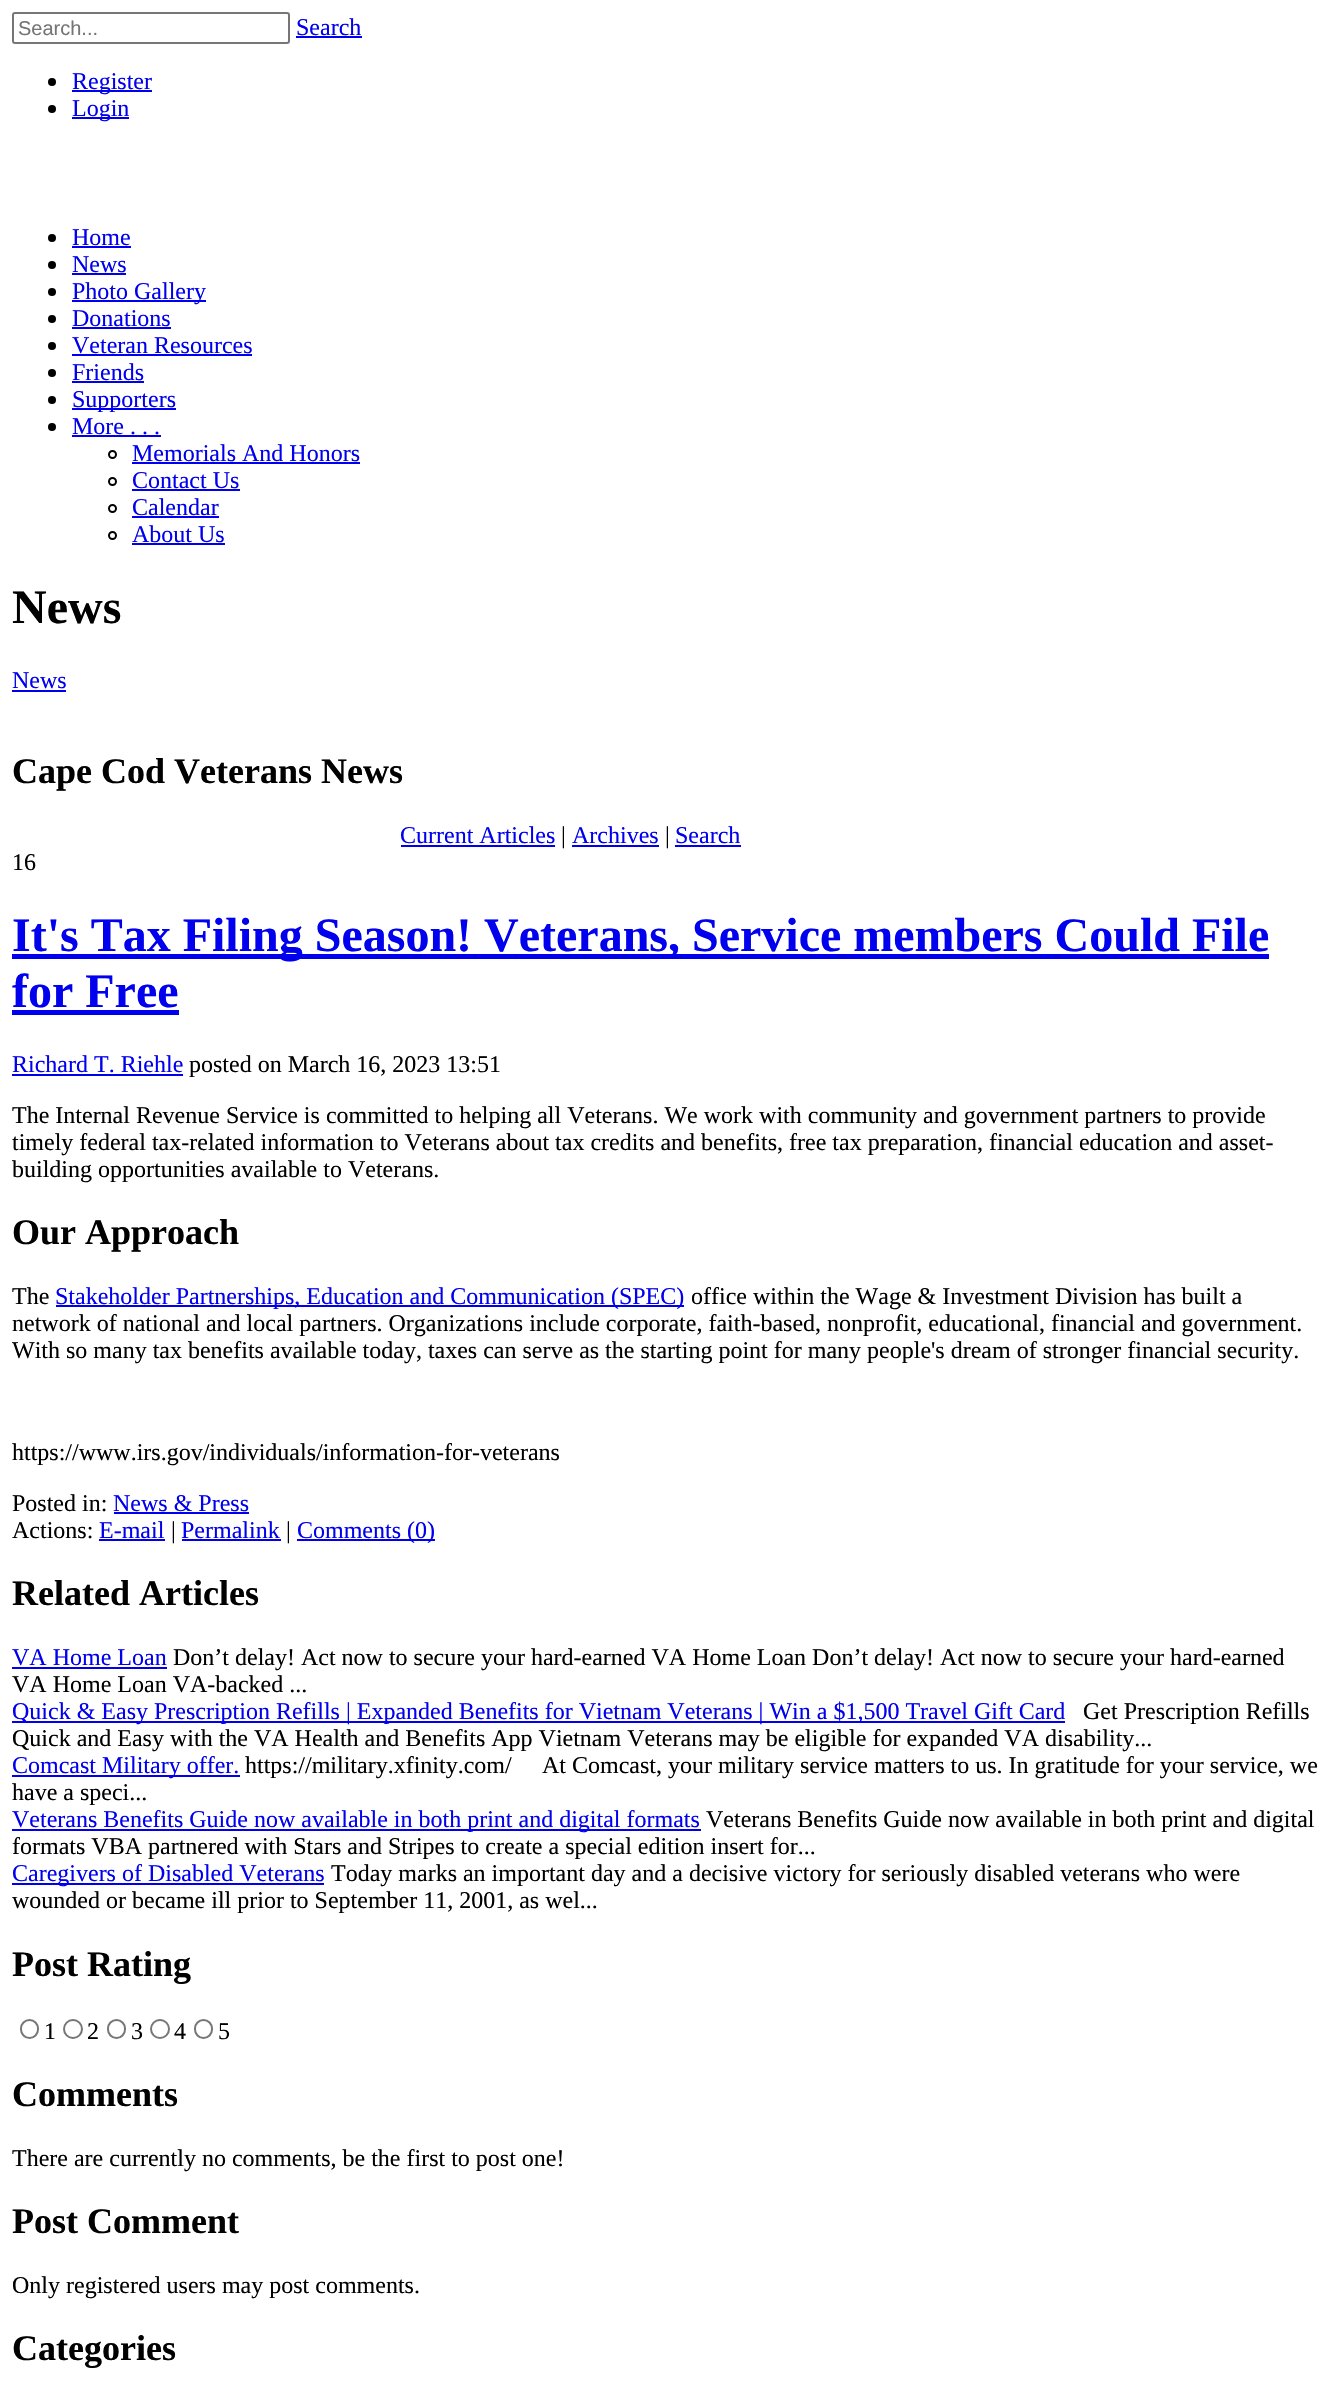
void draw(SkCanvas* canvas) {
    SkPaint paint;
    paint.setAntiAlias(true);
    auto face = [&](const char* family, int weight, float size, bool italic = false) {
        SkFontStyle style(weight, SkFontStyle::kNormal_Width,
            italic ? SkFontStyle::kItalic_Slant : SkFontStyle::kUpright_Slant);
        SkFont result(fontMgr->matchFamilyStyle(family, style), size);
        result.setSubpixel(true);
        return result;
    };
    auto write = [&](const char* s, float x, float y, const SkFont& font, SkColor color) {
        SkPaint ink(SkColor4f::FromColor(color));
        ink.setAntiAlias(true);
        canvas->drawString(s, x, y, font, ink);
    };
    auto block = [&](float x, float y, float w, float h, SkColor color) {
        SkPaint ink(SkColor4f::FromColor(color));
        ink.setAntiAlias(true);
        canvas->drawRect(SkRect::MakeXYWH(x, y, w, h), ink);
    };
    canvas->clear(SK_ColorWHITE);
    paint.setStyle(SkPaint::kStroke_Style);
    paint.setStrokeWidth(2);
    paint.setColor(SkColorSetRGB(118, 118, 118));
    canvas->drawRoundRect(SkRect::MakeXYWH(13, 13, 276, 30), 2, 2, paint);
    auto kFont1 = face("Liberation Sans", 400, 20);
    write("Search...", 18, 35, kFont1, SkColorSetRGB(117, 117, 117));
    auto kFont2 = face("Liberation Serif", 400, 24);
    write("Search", 296, 35, kFont2, SkColorSetRGB(0, 0, 238));
    block(296, 36, 66, 2, SkColorSetRGB(0, 0, 238));
    paint.setStyle(SkPaint::kFill_Style);
    paint.setColor(SK_ColorBLACK);
    canvas->drawCircle(52, 82, 4, paint);
    block(72, 90, 80, 2, SkColorSetRGB(0, 0, 238));
    write("Register", 72, 89, kFont2, SkColorSetRGB(0, 0, 238));
    canvas->drawCircle(52, 109, 4, paint);
    block(72, 117, 57, 2, SkColorSetRGB(0, 0, 238));
    write("Login", 72, 116, kFont2, SkColorSetRGB(0, 0, 238));
    canvas->drawCircle(52, 238, 4, paint);
    write("Home", 72, 245, kFont2, SkColorSetRGB(0, 0, 238));
    block(72, 246, 59, 2, SkColorSetRGB(0, 0, 238));
    canvas->drawCircle(52, 265, 4, paint);
    write("News", 72, 272, kFont2, SkColorSetRGB(0, 0, 238));
    block(72, 273, 54, 2, SkColorSetRGB(0, 0, 238));
    canvas->drawCircle(52, 292, 4, paint);
    block(72, 300, 134, 2, SkColorSetRGB(0, 0, 238));
    write("Photo Gallery", 72, 299, kFont2, SkColorSetRGB(0, 0, 238));
    canvas->drawCircle(52, 319, 4, paint);
    write("Donations", 72, 326, kFont2, SkColorSetRGB(0, 0, 238));
    block(72, 327, 99, 2, SkColorSetRGB(0, 0, 238));
    canvas->drawCircle(52, 346, 4, paint);
    write("Veteran Resources", 72, 353, kFont2, SkColorSetRGB(0, 0, 238));
    block(72, 354, 180, 2, SkColorSetRGB(0, 0, 238));
    canvas->drawCircle(52, 373, 4, paint);
    write("Friends", 72, 380, kFont2, SkColorSetRGB(0, 0, 238));
    block(72, 381, 72, 2, SkColorSetRGB(0, 0, 238));
    canvas->drawCircle(52, 400, 4, paint);
    block(72, 408, 104, 2, SkColorSetRGB(0, 0, 238));
    write("Supporters", 72, 407, kFont2, SkColorSetRGB(0, 0, 238));
    canvas->drawCircle(52, 427, 4, paint);
    write("More . . .", 72, 434, kFont2, SkColorSetRGB(0, 0, 238));
    block(72, 435, 89, 2, SkColorSetRGB(0, 0, 238));
    paint.setStyle(SkPaint::kStroke_Style);
    canvas->drawCircle(112.5f, 454.5f, 3.5f, paint);
    write("Memorials And Honors", 132, 461, kFont2, SkColorSetRGB(0, 0, 238));
    block(132, 462, 228, 2, SkColorSetRGB(0, 0, 238));
    canvas->drawCircle(112.5f, 481.5f, 3.5f, paint);
    write("Contact Us", 132, 488, kFont2, SkColorSetRGB(0, 0, 238));
    block(132, 489, 108, 2, SkColorSetRGB(0, 0, 238));
    canvas->drawCircle(112.5f, 508.5f, 3.5f, paint);
    write("Calendar", 132, 515, kFont2, SkColorSetRGB(0, 0, 238));
    block(132, 516, 87, 2, SkColorSetRGB(0, 0, 238));
    canvas->drawCircle(112.5f, 535.5f, 3.5f, paint);
    write("About Us", 132, 542, kFont2, SkColorSetRGB(0, 0, 238));
    block(132, 543, 93, 2, SkColorSetRGB(0, 0, 238));
    auto kFont3 = face("Liberation Serif", 700, 48);
    write("News", 12, 623, kFont3, SK_ColorBLACK);
    write("News", 12, 688, kFont2, SkColorSetRGB(0, 0, 238));
    block(12, 690, 54, 2, SkColorSetRGB(0, 0, 238));
    auto kFont4 = face("Liberation Serif", 700, 36);
    write("Cape Cod Veterans News", 12, 783, kFont4, SK_ColorBLACK);
    write("Current Articles", 400, 843, kFont2, SkColorSetRGB(0, 0, 238));
    block(401, 845, 154, 2, SkColorSetRGB(0, 0, 238));
    write("|", 561, 843, kFont2, SK_ColorBLACK);
    write("Archives", 572, 843, kFont2, SkColorSetRGB(0, 0, 238));
    block(572, 845, 87, 2, SkColorSetRGB(0, 0, 238));
    write("|", 665, 843, kFont2, SK_ColorBLACK);
    write("Search", 675, 843, kFont2, SkColorSetRGB(0, 0, 238));
    block(675, 845, 66, 2, SkColorSetRGB(0, 0, 238));
    write("16", 12, 870, kFont2, SK_ColorBLACK);
    block(12, 954, 1257, 5, SkColorSetRGB(0, 0, 238));
    write("It's Tax Filing Season! Veterans, Service members Could File", 12, 951, kFont3, SkColorSetRGB(0, 0, 238));
    write("for Free", 12, 1007, kFont3, SkColorSetRGB(0, 0, 238));
    block(12, 1010, 167, 5, SkColorSetRGB(0, 0, 238));
    write("Richard T. Riehle", 12, 1072, kFont2, SkColorSetRGB(0, 0, 238));
    block(12, 1074, 171, 2, SkColorSetRGB(0, 0, 238));
    write("posted on March 16, 2023 13:51", 189, 1072, kFont2, SK_ColorBLACK);
    write("The Internal Revenue Service is committed to helping all Veterans. We work with community and government partners to provide", 12, 1123, kFont2, SK_ColorBLACK);
    write("timely federal tax-related information to Veterans about tax credits and benefits, free tax preparation, financial education and asset-", 12, 1150, kFont2, SK_ColorBLACK);
    write("building opportunities available to Veterans.", 12, 1177, kFont2, SK_ColorBLACK);
    write("Our Approach", 12, 1244, kFont4, SK_ColorBLACK);
    write("The", 12, 1304, kFont2, SK_ColorBLACK);
    block(56, 1305, 628, 2, SkColorSetRGB(0, 0, 238));
    write("Stakeholder Partnerships, Education and Communication (SPEC)", 55, 1304, kFont2, SkColorSetRGB(0, 0, 238));
    write("office within the Wage & Investment Division has built a", 691, 1304, kFont2, SK_ColorBLACK);
    write("network of national and local partners. Organizations include corporate, faith-based, nonprofit, educational, financial and government.", 12, 1331, kFont2, SK_ColorBLACK);
    write("With so many tax benefits available today, taxes can serve as the starting point for many people's dream of stronger financial security.", 12, 1358, kFont2, SK_ColorBLACK);
    write("https://www.irs.gov/individuals/information-for-veterans", 12, 1460, kFont2, SK_ColorBLACK);
    write("Posted in:", 12, 1511, kFont2, SK_ColorBLACK);
    write("News & Press", 113, 1511, kFont2, SkColorSetRGB(0, 0, 238));
    block(114, 1512, 135, 2, SkColorSetRGB(0, 0, 238));
    write("Actions:", 12, 1538, kFont2, SK_ColorBLACK);
    write("E-mail", 99, 1538, kFont2, SkColorSetRGB(0, 0, 238));
    block(99, 1539, 66, 2, SkColorSetRGB(0, 0, 238));
    write("|", 171, 1538, kFont2, SK_ColorBLACK);
    write("Permalink", 181, 1538, kFont2, SkColorSetRGB(0, 0, 238));
    block(182, 1539, 99, 2, SkColorSetRGB(0, 0, 238));
    write("|", 286, 1538, kFont2, SK_ColorBLACK);
    block(297, 1539, 138, 2, SkColorSetRGB(0, 0, 238));
    write("Comments (0)", 297, 1538, kFont2, SkColorSetRGB(0, 0, 238));
    write("Related Articles", 12, 1605, kFont4, SK_ColorBLACK);
    write("VA Home Loan", 12, 1665, kFont2, SkColorSetRGB(0, 0, 238));
    block(12, 1667, 155, 2, SkColorSetRGB(0, 0, 238));
    write("Don’t delay! Act now to secure your hard-earned VA Home Loan Don’t delay! Act now to secure your hard-earned", 173, 1665, kFont2, SK_ColorBLACK);
    write("VA Home Loan VA-backed ...", 12, 1692, kFont2, SK_ColorBLACK);
    block(12, 1721, 1053, 2, SkColorSetRGB(0, 0, 238));
    write("Quick & Easy Prescription Refills | Expanded Benefits for Vietnam Veterans | Win a $1,500 Travel Gift Card", 12, 1719, kFont2, SkColorSetRGB(0, 0, 238));
    write("Get Prescription Refills", 1083, 1719, kFont2, SK_ColorBLACK);
    write("Quick and Easy with the VA Health and Benefits App Vietnam Veterans may be eligible for expanded VA disability...", 12, 1746, kFont2, SK_ColorBLACK);
    block(12, 1775, 228, 2, SkColorSetRGB(0, 0, 238));
    write("Comcast Military offer.", 12, 1773, kFont2, SkColorSetRGB(0, 0, 238));
    write("https://military.xfinity.com/", 245, 1773, kFont2, SK_ColorBLACK);
    write("At Comcast, your military service matters to us. In gratitude for your service, we", 542, 1773, kFont2, SK_ColorBLACK);
    write("have a speci...", 12, 1800, kFont2, SK_ColorBLACK);
    block(12, 1829, 689, 2, SkColorSetRGB(0, 0, 238));
    write("Veterans Benefits Guide now available in both print and digital formats", 12, 1827, kFont2, SkColorSetRGB(0, 0, 238));
    write("Veterans Benefits Guide now available in both print and digital", 706, 1827, kFont2, SK_ColorBLACK);
    write("formats VBA partnered with Stars and Stripes to create a special edition insert for...", 12, 1854, kFont2, SK_ColorBLACK);
    block(12, 1883, 312, 2, SkColorSetRGB(0, 0, 238));
    write("Caregivers of Disabled Veterans", 12, 1881, kFont2, SkColorSetRGB(0, 0, 238));
    write("Today marks an important day and a decisive victory for seriously disabled veterans who were", 331, 1881, kFont2, SK_ColorBLACK);
    write("wounded or became ill prior to September 11, 2001, as wel...", 12, 1908, kFont2, SK_ColorBLACK);
    write("Post Rating", 12, 1976, kFont4, SK_ColorBLACK);
    paint.setColor(SkColorSetRGB(118, 118, 118));
    canvas->drawRoundRect(SkRect::MakeXYWH(21, 2020, 17, 18), 8.5f, 8.5f, paint);
    write("1", 44, 2039, kFont2, SK_ColorBLACK);
    canvas->drawCircle(73, 2029, 9, paint);
    write("2", 87, 2039, kFont2, SK_ColorBLACK);
    canvas->drawRoundRect(SkRect::MakeXYWH(108, 2020, 17, 18), 8.5f, 8.5f, paint);
    write("3", 131, 2039, kFont2, SK_ColorBLACK);
    canvas->drawCircle(160, 2029, 9, paint);
    write("4", 174, 2039, kFont2, SK_ColorBLACK);
    canvas->drawRoundRect(SkRect::MakeXYWH(195, 2020, 17, 18), 8.5f, 8.5f, paint);
    write("5", 218, 2039, kFont2, SK_ColorBLACK);
    write("Comments", 12, 2106, kFont4, SK_ColorBLACK);
    write("There are currently no comments, be the first to post one!", 12, 2166, kFont2, SK_ColorBLACK);
    write("Post Comment", 12, 2233, kFont4, SK_ColorBLACK);
    write("Only registered users may post comments.", 12, 2293, kFont2, SK_ColorBLACK);
    write("Categories", 12, 2360, kFont4, SK_ColorBLACK);
}
